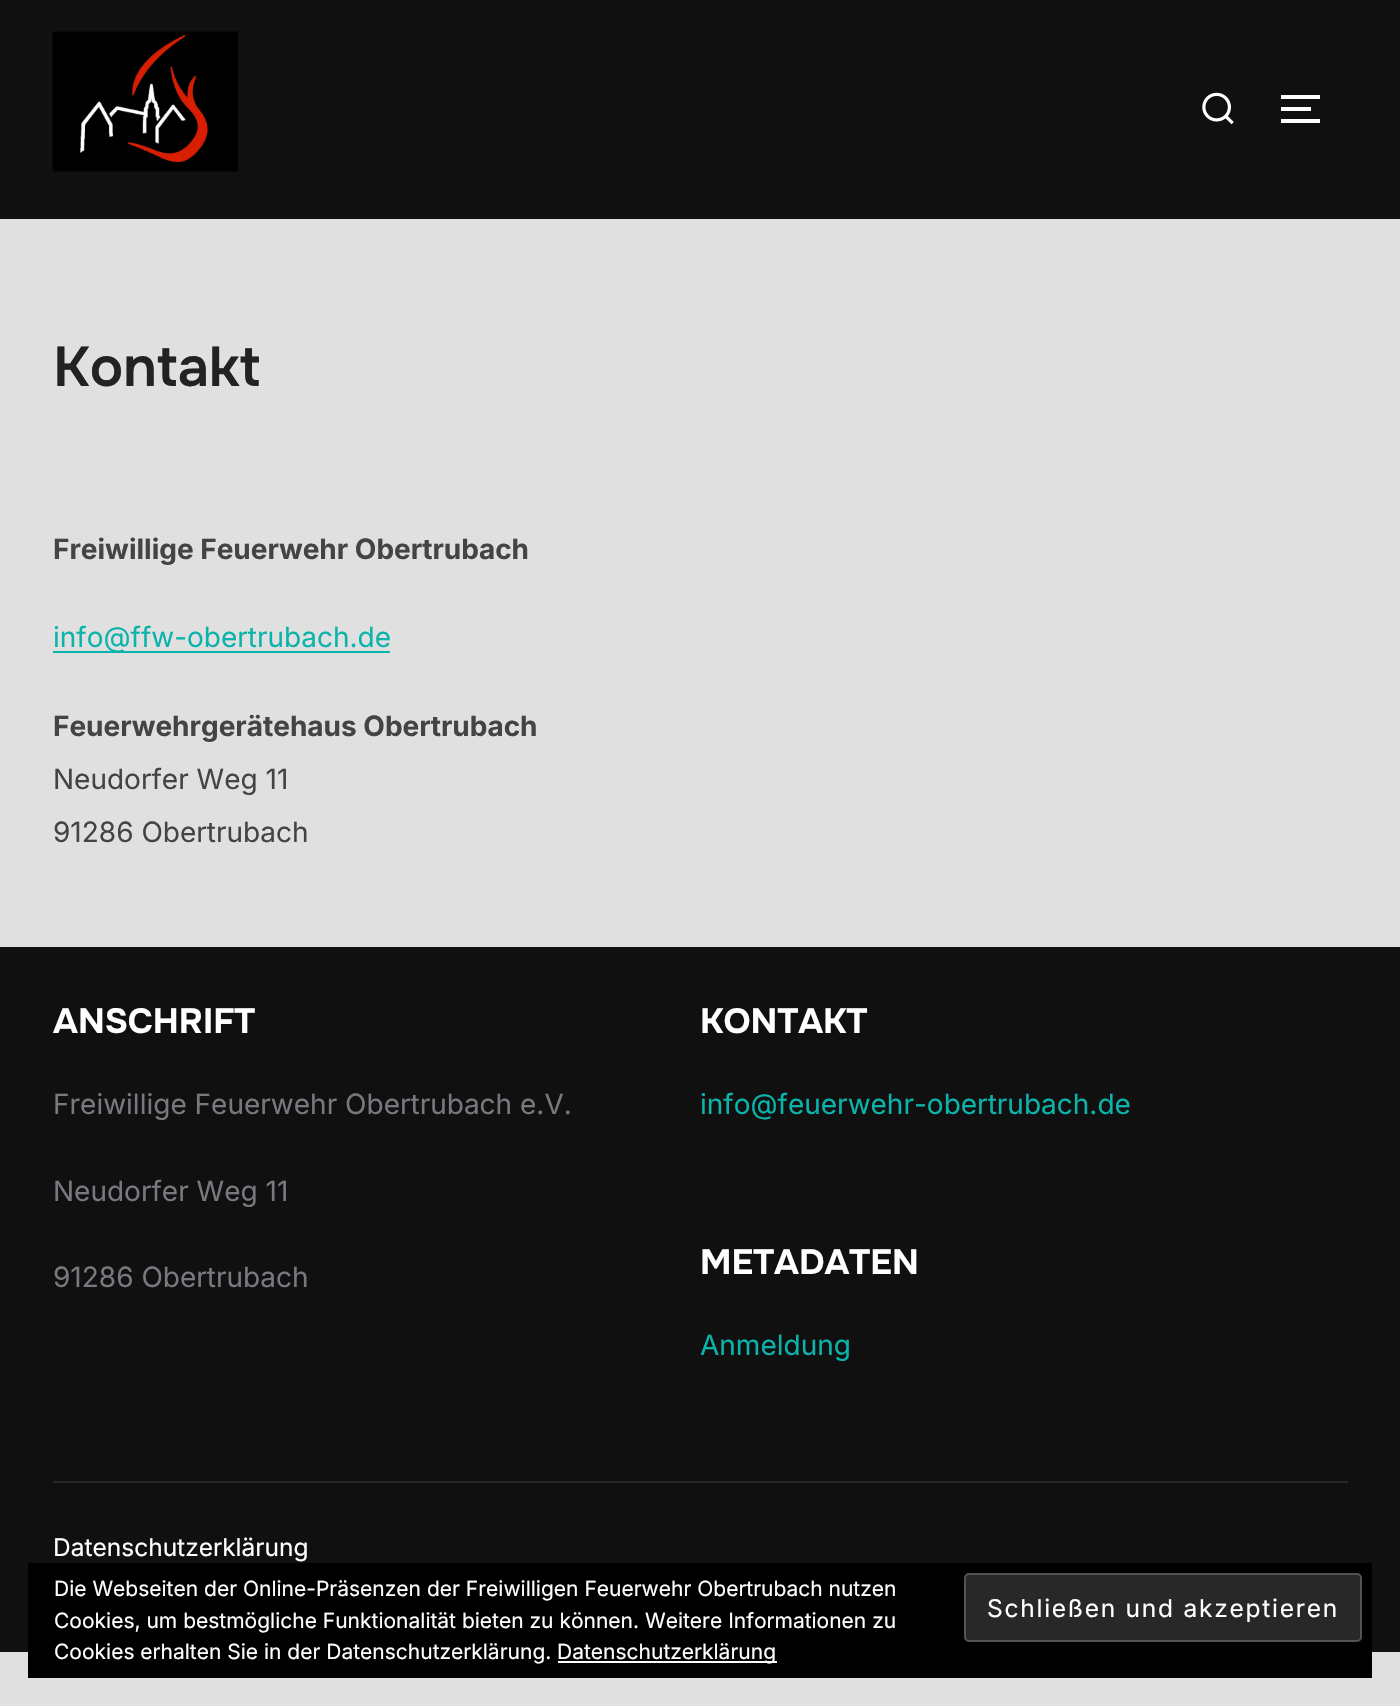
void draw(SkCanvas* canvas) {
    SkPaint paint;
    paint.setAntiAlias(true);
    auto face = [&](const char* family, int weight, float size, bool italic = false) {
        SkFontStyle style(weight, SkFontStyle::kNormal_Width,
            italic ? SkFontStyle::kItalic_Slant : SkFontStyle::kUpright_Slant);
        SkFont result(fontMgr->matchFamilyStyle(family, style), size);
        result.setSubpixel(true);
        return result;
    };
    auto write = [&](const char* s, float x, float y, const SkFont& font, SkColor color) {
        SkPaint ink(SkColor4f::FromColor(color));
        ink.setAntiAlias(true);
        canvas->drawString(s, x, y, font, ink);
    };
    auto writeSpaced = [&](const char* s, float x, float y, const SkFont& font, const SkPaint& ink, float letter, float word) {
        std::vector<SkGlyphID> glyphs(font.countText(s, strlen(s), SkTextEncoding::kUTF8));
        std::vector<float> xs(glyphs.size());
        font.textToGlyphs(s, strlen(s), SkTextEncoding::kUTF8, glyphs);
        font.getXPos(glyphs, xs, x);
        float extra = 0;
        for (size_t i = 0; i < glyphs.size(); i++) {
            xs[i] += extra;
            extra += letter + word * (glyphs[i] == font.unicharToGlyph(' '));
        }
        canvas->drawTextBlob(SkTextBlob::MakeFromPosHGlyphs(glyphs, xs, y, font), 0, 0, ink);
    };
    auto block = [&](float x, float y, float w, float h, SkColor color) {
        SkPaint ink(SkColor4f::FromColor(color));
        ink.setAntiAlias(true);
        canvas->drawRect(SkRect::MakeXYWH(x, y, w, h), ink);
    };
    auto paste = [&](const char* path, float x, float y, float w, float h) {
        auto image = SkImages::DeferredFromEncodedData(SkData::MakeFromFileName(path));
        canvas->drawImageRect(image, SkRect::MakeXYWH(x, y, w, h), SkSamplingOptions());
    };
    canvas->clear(SkColorSetRGB(224, 224, 224));
    block(0, 0, 1400, 219, SkColorSetRGB(16, 16, 16));
    paste("pic1.png", 52, 31, 186, 141);
    paste("pic2.png", 1202, 92, 32, 33);
    block(1281, 95, 39, 4, SK_ColorWHITE);
    block(1281, 107, 30, 4, SK_ColorWHITE);
    block(1281, 119, 39, 4, SK_ColorWHITE);
    auto kFont1 = face("Onest", 600, 56);
    write("Kontakt", 53, 386, kFont1, SkColorSetRGB(34, 34, 34));
    auto kFont2 = face("Inter", 700, 28);
    write("Freiwillige Feuerwehr Obertrubach", 53, 559, kFont2, SkColorSetRGB(68, 68, 68));
    block(53, 651, 337, 2, SkColorSetRGB(11, 180, 170));
    auto kFont3 = face("Inter", 400, 28);
    write("info@ffw-obertrubach.de", 53, 647, kFont3, SkColorSetRGB(11, 180, 170));
    write("Feuerwehrgerätehaus Obertrubach", 53, 736, kFont2, SkColorSetRGB(68, 68, 68));
    write("Neudorfer Weg 11", 53, 789, kFont3, SkColorSetRGB(68, 68, 68));
    write("91286 Obertrubach", 53, 842, kFont3, SkColorSetRGB(68, 68, 68));
    block(0, 947, 1400, 705, SkColorSetRGB(16, 16, 16));
    auto kFont4 = face("Onest", 700, 35);
    write("ANSCHRIFT", 53, 1033, kFont4, SK_ColorWHITE);
    write("Freiwillige Feuerwehr Obertrubach e.V.", 53, 1114, kFont3, SkColorSetRGB(120, 120, 127));
    write("Neudorfer Weg 11", 53, 1201, kFont3, SkColorSetRGB(120, 120, 127));
    write("91286 Obertrubach", 53, 1287, kFont3, SkColorSetRGB(120, 120, 127));
    write("KONTAKT", 700, 1033, kFont4, SK_ColorWHITE);
    write("info@feuerwehr-obertrubach.de", 700, 1114, kFont3, SkColorSetRGB(11, 180, 170));
    write("METADATEN", 700, 1274, kFont4, SK_ColorWHITE);
    write("Anmeldung", 700, 1355, kFont3, SkColorSetRGB(11, 180, 170));
    block(53, 1481, 1295, 2, SkColorSetRGB(40, 40, 40));
    auto kFont5 = face("Inter", 400, 24.5f);
    write("Datenschutzerklärung", 53, 1556, kFont5, SK_ColorWHITE);
    block(28, 1563, 1344, 115, SK_ColorBLACK);
    auto kFont6 = face("Inter", 400, 21);
    write("Die Webseiten der Online-Präsenzen der Freiwilligen Feuerwehr Obertrubach nutzen", 54, 1596, kFont6, SK_ColorWHITE);
    write("Cookies, um bestmögliche Funktionalität bieten zu können. Weitere Informationen zu", 54, 1628, kFont6, SK_ColorWHITE);
    paint.setColor(SkColorSetRGB(40, 40, 40));
    canvas->drawRoundRect(SkRect::MakeXYWH(965, 1574, 396, 67), 4, 4, paint);
    paint.setStyle(SkPaint::kStroke_Style);
    paint.setStrokeWidth(2);
    paint.setColor(SkColorSetRGB(83, 83, 83));
    canvas->drawRoundRect(SkRect::MakeXYWH(965, 1574, 396, 67), 4, 4, paint);
    paint.setStyle(SkPaint::kFill_Style);
    paint.setColor(SK_ColorWHITE);
    writeSpaced("Schließen und akzeptieren", 987, 1617, kFont5, paint, 1.75f, 0);
    write("Cookies erhalten Sie in der Datenschutzerklärung.", 54, 1659, kFont6, SK_ColorWHITE);
    block(558, 1661, 219, 2, SK_ColorWHITE);
    write("Datenschutzerklärung", 557, 1659, kFont6, SK_ColorWHITE);
}
